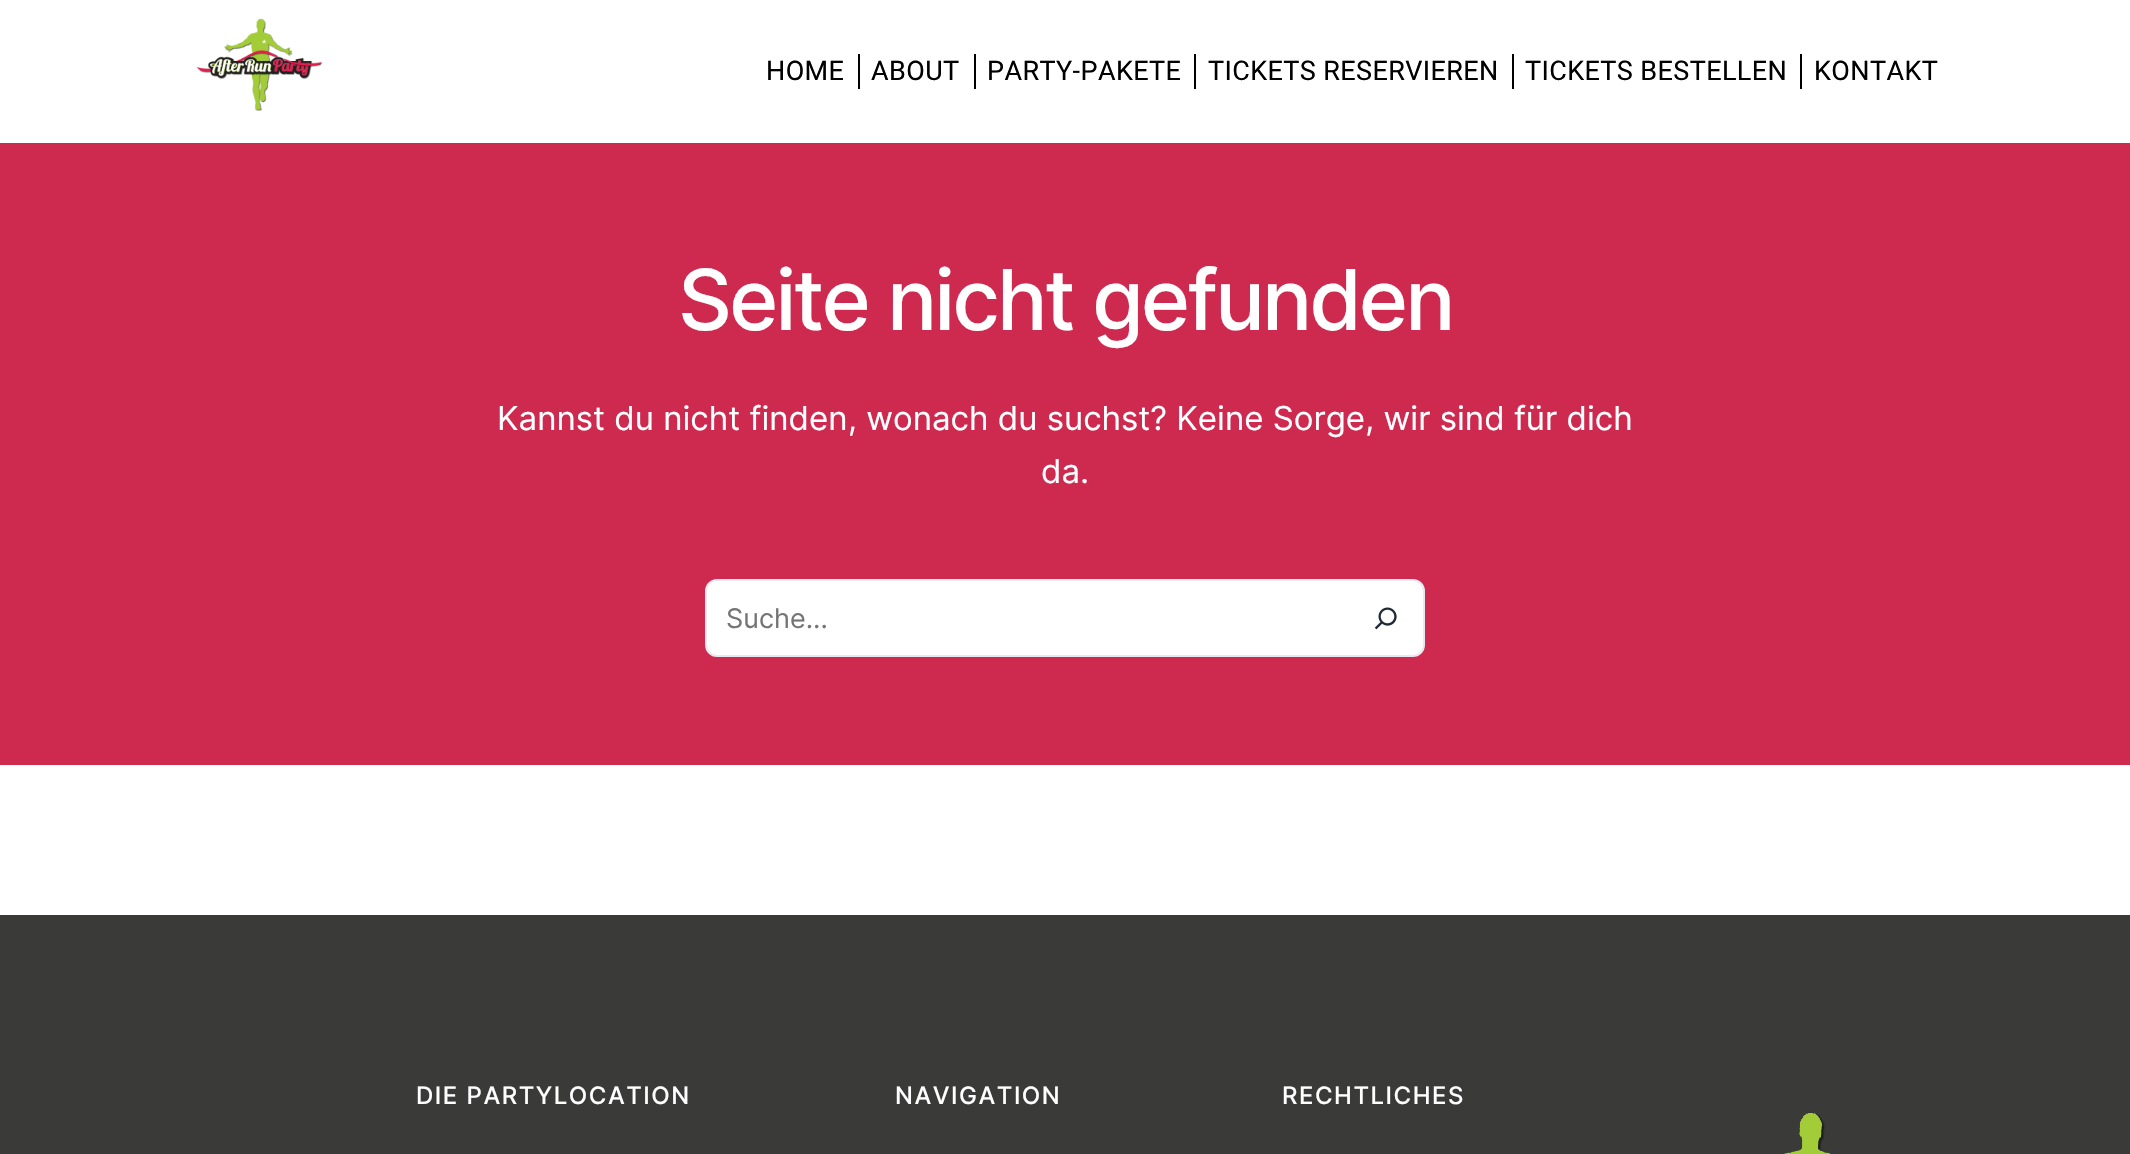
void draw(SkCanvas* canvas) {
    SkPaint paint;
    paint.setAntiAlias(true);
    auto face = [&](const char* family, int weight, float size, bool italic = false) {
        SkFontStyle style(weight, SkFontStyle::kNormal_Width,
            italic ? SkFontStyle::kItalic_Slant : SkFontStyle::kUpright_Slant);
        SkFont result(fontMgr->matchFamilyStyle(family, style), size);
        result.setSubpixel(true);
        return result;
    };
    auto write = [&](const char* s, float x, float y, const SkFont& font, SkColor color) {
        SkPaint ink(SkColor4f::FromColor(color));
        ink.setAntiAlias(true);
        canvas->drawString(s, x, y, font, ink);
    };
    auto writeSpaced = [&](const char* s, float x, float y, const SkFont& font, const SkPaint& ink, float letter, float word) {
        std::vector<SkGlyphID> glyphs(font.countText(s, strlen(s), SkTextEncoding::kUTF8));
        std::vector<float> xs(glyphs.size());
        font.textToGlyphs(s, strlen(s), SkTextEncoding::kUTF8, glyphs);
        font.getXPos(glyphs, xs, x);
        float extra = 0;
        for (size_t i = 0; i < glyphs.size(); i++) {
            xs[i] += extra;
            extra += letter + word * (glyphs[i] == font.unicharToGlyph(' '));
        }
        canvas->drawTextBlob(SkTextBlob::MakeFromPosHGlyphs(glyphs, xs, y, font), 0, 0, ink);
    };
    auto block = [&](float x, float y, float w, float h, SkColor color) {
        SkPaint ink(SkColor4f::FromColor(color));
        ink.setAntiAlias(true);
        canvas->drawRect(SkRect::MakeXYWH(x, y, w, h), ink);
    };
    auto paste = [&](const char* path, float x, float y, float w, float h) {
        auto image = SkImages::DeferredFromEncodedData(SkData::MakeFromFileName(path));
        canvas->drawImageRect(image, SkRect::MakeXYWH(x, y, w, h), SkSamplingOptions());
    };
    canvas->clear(SK_ColorWHITE);
    paste("pic1.png", 196, 18, 127, 93);
    auto kFont1 = face("Roboto", 400, 27);
    paint.setColor(SK_ColorBLACK);
    writeSpaced("HOME", 766, 80, kFont1, paint, 0.4f, 0);
    block(858, 54, 2, 35, SK_ColorBLACK);
    writeSpaced("ABOUT", 871, 80, kFont1, paint, 0.4f, 0);
    block(974, 54, 2, 35, SK_ColorBLACK);
    writeSpaced("PARTY-PAKETE", 987, 80, kFont1, paint, 0.4f, 0);
    block(1194, 54, 2, 35, SK_ColorBLACK);
    writeSpaced("TICKETS RESERVIEREN", 1208, 80, kFont1, paint, 0.4f, 0);
    block(1512, 54, 2, 35, SK_ColorBLACK);
    writeSpaced("TICKETS BESTELLEN", 1525, 80, kFont1, paint, 0.4f, 0);
    block(1800, 54, 2, 35, SK_ColorBLACK);
    writeSpaced("KONTAKT", 1814, 80, kFont1, paint, 0.4f, 0);
    block(0, 143, 2130, 622, SkColorSetRGB(206, 42, 80));
    auto kFont2 = face("Inter", 500, 84);
    paint.setColor(SK_ColorWHITE);
    writeSpaced("Seite nicht gefunden", 678, 330, kFont2, paint, -3, 0);
    auto kFont3 = face("Inter", 400, 33);
    write("Kannst du nicht finden, wonach du suchst? Keine Sorge, wir sind für dich", 497, 430, kFont3, SK_ColorWHITE);
    write("da.", 1041, 483, kFont3, SK_ColorWHITE);
    canvas->drawRoundRect(SkRect::MakeXYWH(706, 580, 718, 76), 11, 11, paint);
    paint.setStyle(SkPaint::kStroke_Style);
    paint.setStrokeWidth(2);
    paint.setColor(SkColorSetRGB(230, 233, 239));
    canvas->drawRoundRect(SkRect::MakeXYWH(706, 580, 718, 76), 11, 11, paint);
    auto kFont4 = face("Inter", 400, 27);
    write("Suche...", 726, 628, kFont4, SkColorSetRGB(117, 117, 117));
    paste("pic2.png", 1374, 607, 23, 23);
    block(0, 915, 2130, 239, SkColorSetRGB(58, 58, 57));
    auto kFont5 = face("Inter", 500, 24);
    paint.setStyle(SkPaint::kFill_Style);
    paint.setColor(SK_ColorWHITE);
    writeSpaced("DIE PARTYLOCATION", 416, 1104, kFont5, paint, 1.5f, 0);
    writeSpaced("NAVIGATION", 895, 1104, kFont5, paint, 1.5f, 0);
    writeSpaced("RECHTLICHES", 1282, 1104, kFont5, paint, 1.5f, 0);
    paste("pic3.png", 1783, 1112, 49, 42);
}
